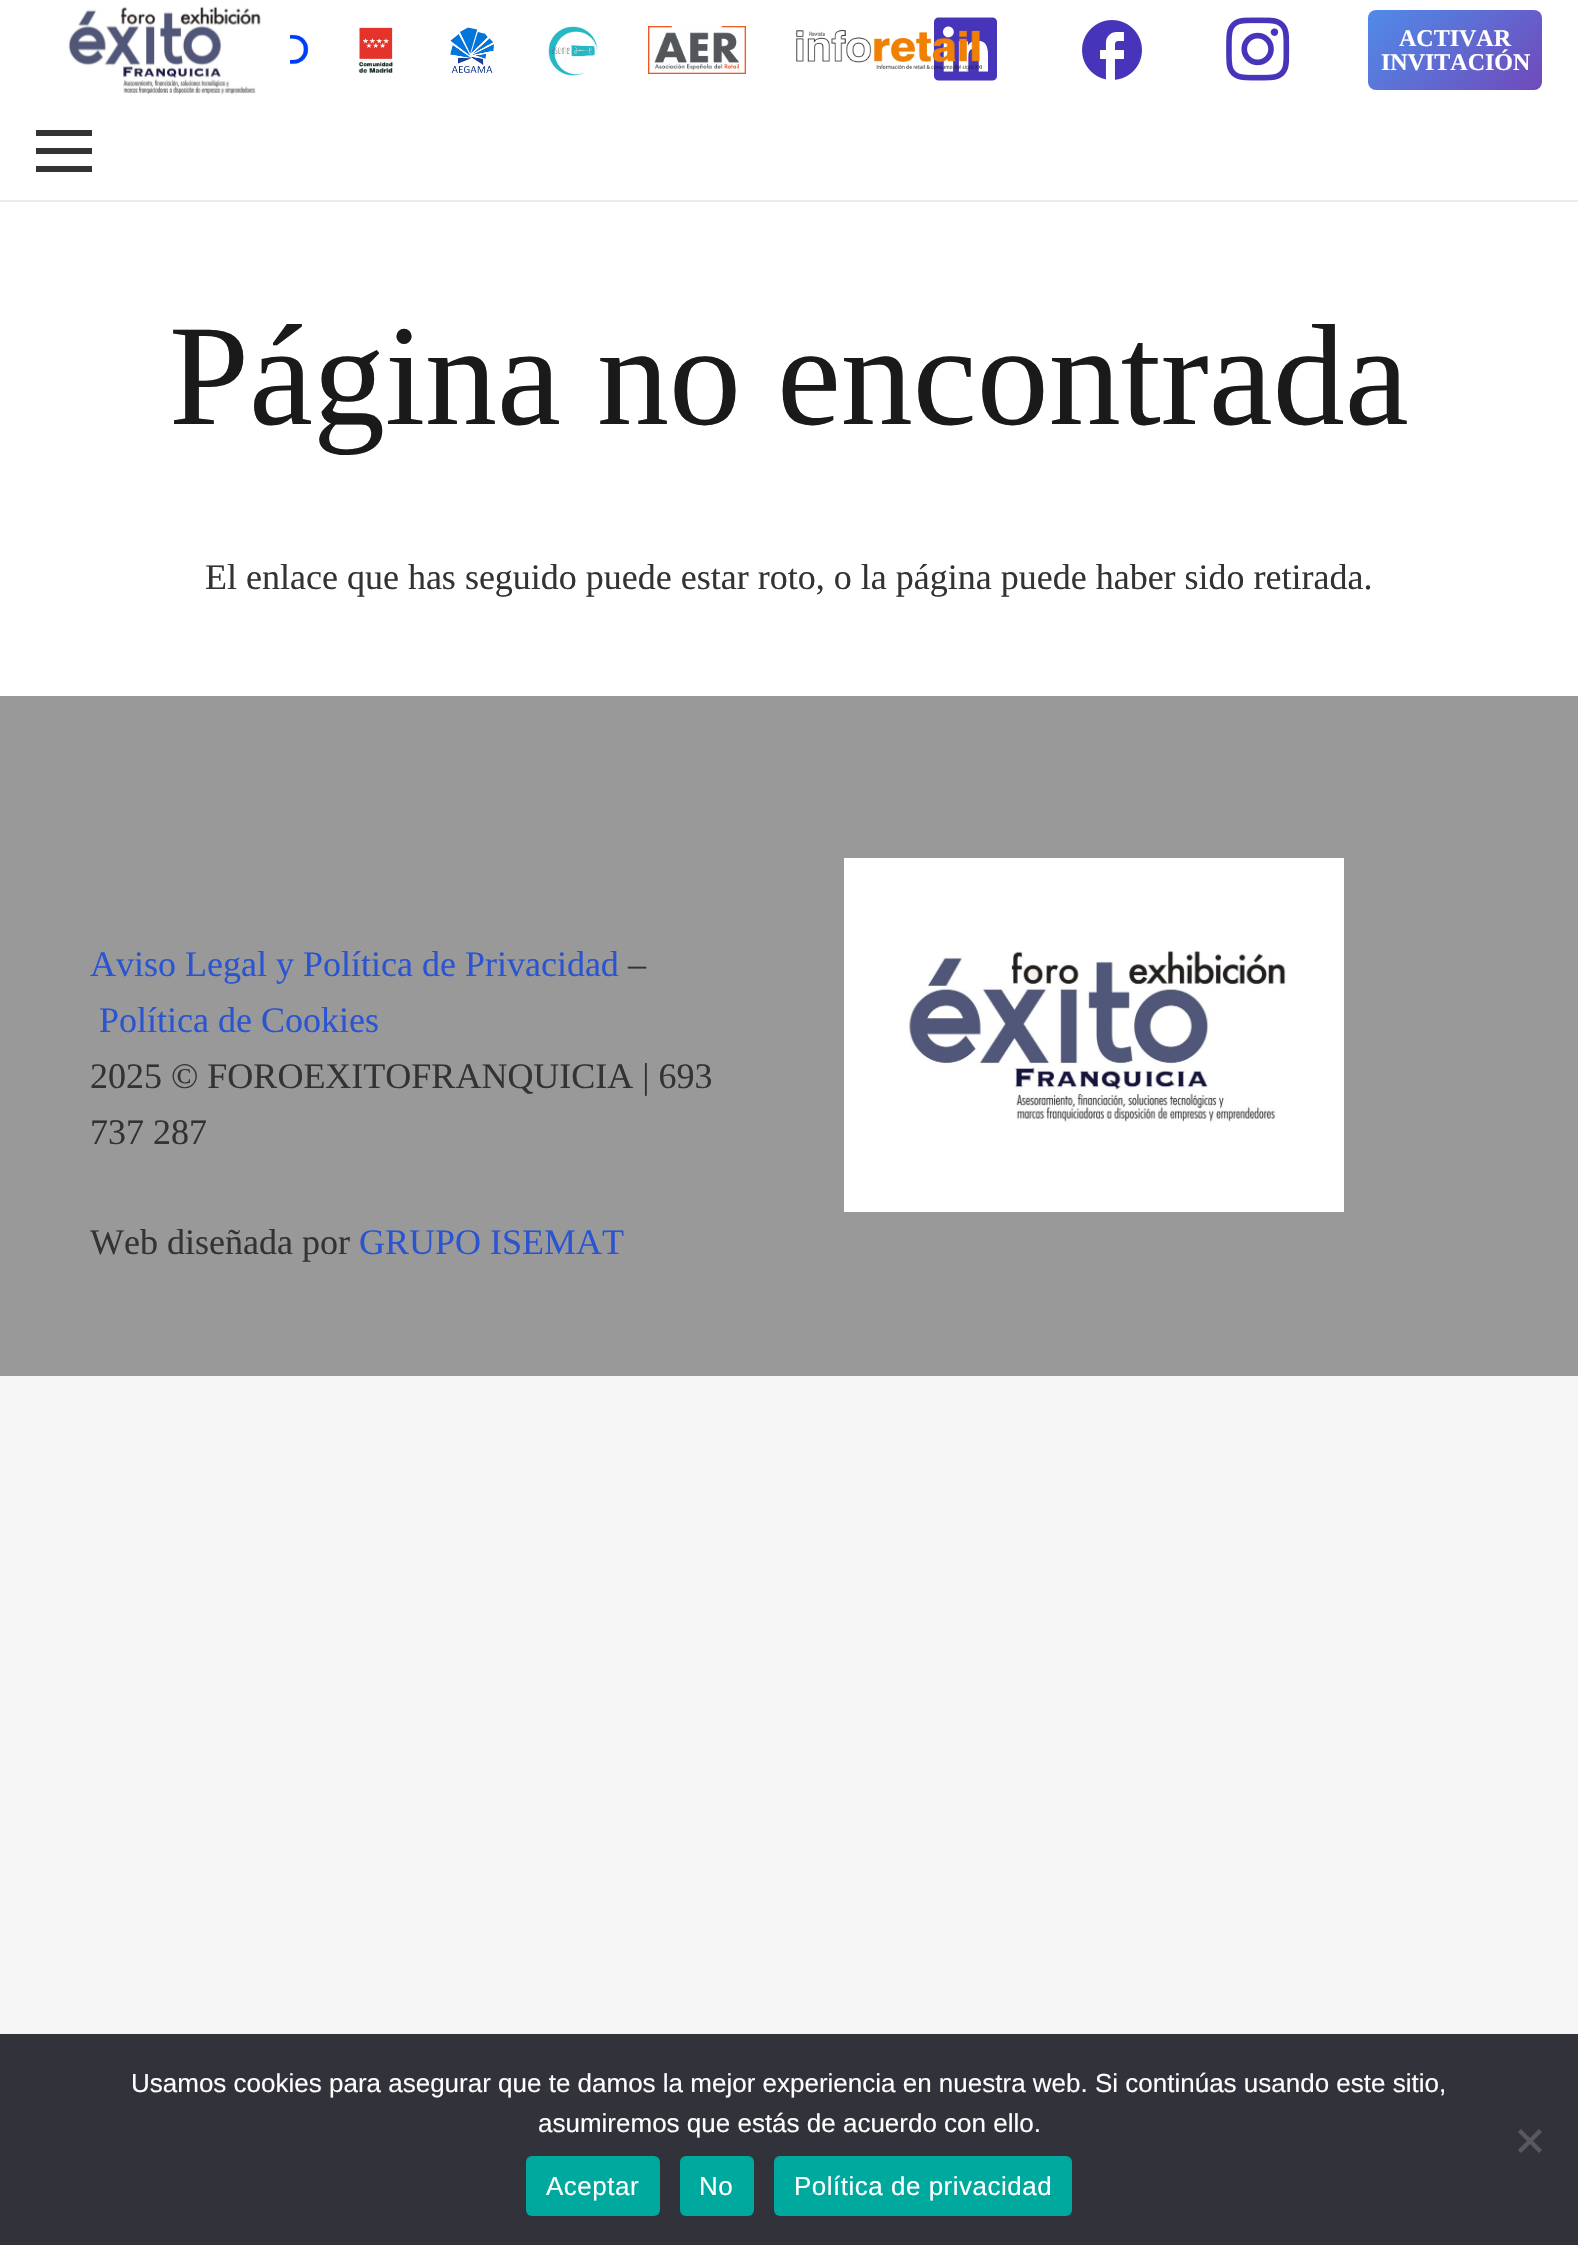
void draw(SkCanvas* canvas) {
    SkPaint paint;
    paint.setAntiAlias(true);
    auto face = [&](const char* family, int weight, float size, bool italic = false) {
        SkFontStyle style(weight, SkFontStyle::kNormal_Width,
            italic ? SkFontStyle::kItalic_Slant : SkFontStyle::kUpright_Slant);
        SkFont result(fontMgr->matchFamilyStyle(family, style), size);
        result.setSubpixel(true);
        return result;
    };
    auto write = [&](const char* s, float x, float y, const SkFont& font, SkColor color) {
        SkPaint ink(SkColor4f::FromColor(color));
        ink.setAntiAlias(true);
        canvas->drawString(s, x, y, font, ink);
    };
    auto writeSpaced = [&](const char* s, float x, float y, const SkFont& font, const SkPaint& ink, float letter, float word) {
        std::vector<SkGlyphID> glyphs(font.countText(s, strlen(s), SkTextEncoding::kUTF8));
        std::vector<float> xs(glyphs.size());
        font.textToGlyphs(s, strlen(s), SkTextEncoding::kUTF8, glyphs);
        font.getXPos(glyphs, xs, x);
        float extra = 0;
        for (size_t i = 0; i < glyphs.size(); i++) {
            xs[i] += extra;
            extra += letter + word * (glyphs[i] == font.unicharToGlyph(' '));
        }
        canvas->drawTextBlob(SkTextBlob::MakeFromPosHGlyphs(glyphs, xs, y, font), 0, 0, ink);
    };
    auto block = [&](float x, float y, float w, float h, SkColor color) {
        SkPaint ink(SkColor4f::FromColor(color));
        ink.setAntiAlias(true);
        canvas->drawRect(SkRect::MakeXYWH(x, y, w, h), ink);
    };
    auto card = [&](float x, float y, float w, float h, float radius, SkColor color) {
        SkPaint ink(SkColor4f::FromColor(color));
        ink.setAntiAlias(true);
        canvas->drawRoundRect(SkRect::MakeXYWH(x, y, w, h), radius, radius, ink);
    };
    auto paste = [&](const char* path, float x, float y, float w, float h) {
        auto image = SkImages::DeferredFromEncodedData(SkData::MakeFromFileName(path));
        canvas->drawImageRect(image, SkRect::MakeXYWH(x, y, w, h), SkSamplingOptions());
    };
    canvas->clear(SkColorSetRGB(245, 245, 245));
    block(0, 0, 1578, 696, SK_ColorWHITE);
    paste("pic1.png", 68, 6, 222, 89);
    paste("pic2.png", 290, 30, 19, 40);
    paste("pic3.png", 358, 27, 35, 47);
    paste("pic4.png", 450, 27, 44, 46);
    paste("pic5.png", 548, 26, 50, 50);
    paste("pic6.png", 648, 26, 98, 48);
    paste("pic8.png", 934, 17, 63, 64);
    paste("pic7.png", 796, 29, 186, 42);
    paste("pic9.png", 1082, 20, 60, 60);
    paste("pic10.png", 1226, 17, 64, 64);
    {
        const SkColor colors[] = {SkColorSetRGB(80, 139, 233), SkColorSetRGB(112, 73, 186)};
        const float stops[] = {0, 1};
        const SkPoint ends[] = {{1392, -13}, {1519, 114}};
        paint.setShader(SkGradientShader::MakeLinear(ends, colors, stops, 2, SkTileMode::kClamp));
        paint.setAlpha(255);
    }
    canvas->drawRoundRect(SkRect::MakeXYWH(1368, 10, 174, 80), 8, 8, paint);
    auto kFont1 = face("Liberation Serif", 700, 24);
    write("ACTIVAR", 1399, 46, kFont1, SK_ColorWHITE);
    write("INVITACIÓN", 1381, 70, kFont1, SK_ColorWHITE);
    block(0, 200, 1578, 2, SkColorSetRGB(235, 235, 235));
    block(36, 148, 56, 6, SkColorSetRGB(51, 51, 51));
    block(36, 130, 56, 6, SkColorSetRGB(51, 51, 51));
    block(36, 166, 56, 6, SkColorSetRGB(51, 51, 51));
    auto kFont2 = face("Liberation Serif", 400, 144);
    write("Página no encontrada", 169, 424, kFont2, SkColorSetRGB(26, 26, 26));
    auto kFont3 = face("Liberation Serif", 400, 36);
    write("El enlace que has seguido puede estar roto, o la página puede haber sido retirada.", 205, 589, kFont3, SkColorSetRGB(51, 51, 51));
    block(0, 696, 1578, 680, SkColorSetRGB(153, 153, 153));
    write("Aviso Legal y Política de Privacidad", 90, 976, kFont3, SkColorSetRGB(42, 84, 209));
    write("–", 628, 976, kFont3, SkColorSetRGB(51, 51, 51));
    write("Política de Cookies", 99, 1032, kFont3, SkColorSetRGB(42, 84, 209));
    write("2025 © FOROEXITOFRANQUICIA | 693", 90, 1088, kFont3, SkColorSetRGB(51, 51, 51));
    write("737 287", 90, 1144, kFont3, SkColorSetRGB(51, 51, 51));
    write("Web diseñada por", 90, 1254, kFont3, SkColorSetRGB(51, 51, 51));
    write("GRUPO ISEMAT", 359, 1254, kFont3, SkColorSetRGB(42, 84, 209));
    paste("pic11.png", 844, 858, 500, 354);
    block(0, 2034, 1578, 211, SkColorSetRGB(50, 50, 58));
    auto kFont4 = face("Liberation Sans", 400, 26);
    write("Usamos cookies para asegurar que te damos la mejor experiencia en nuestra web. Si continúas usando este sitio,", 131, 2092, kFont4, SK_ColorWHITE);
    write("asumiremos que estás de acuerdo con ello.", 538, 2132, kFont4, SK_ColorWHITE);
    paint.setShader(nullptr);
    paint.setColor(SkColorSetRGB(89, 89, 93));
    canvas->drawPath(SkPathBuilder().moveTo(1539, 2129).lineTo(1542, 2132).lineTo(1521, 2153).lineTo(1518, 2150).close().detach(), paint);
    canvas->drawPath(SkPathBuilder().moveTo(1518, 2132).lineTo(1521, 2129).lineTo(1542, 2150).lineTo(1539, 2153).close().detach(), paint);
    card(526, 2156, 134, 60, 6, SkColorSetRGB(0, 169, 157));
    paint.setColor(SK_ColorWHITE);
    writeSpaced("Aceptar", 546, 2195, kFont4, paint, 0.5f, 0);
    card(680, 2156, 74, 60, 6, SkColorSetRGB(0, 169, 157));
    writeSpaced("No", 699, 2195, kFont4, paint, 0.5f, 0);
    card(774, 2156, 298, 60, 6, SkColorSetRGB(0, 169, 157));
    writeSpaced("Política de privacidad", 794, 2195, kFont4, paint, 0.5f, 0);
}
